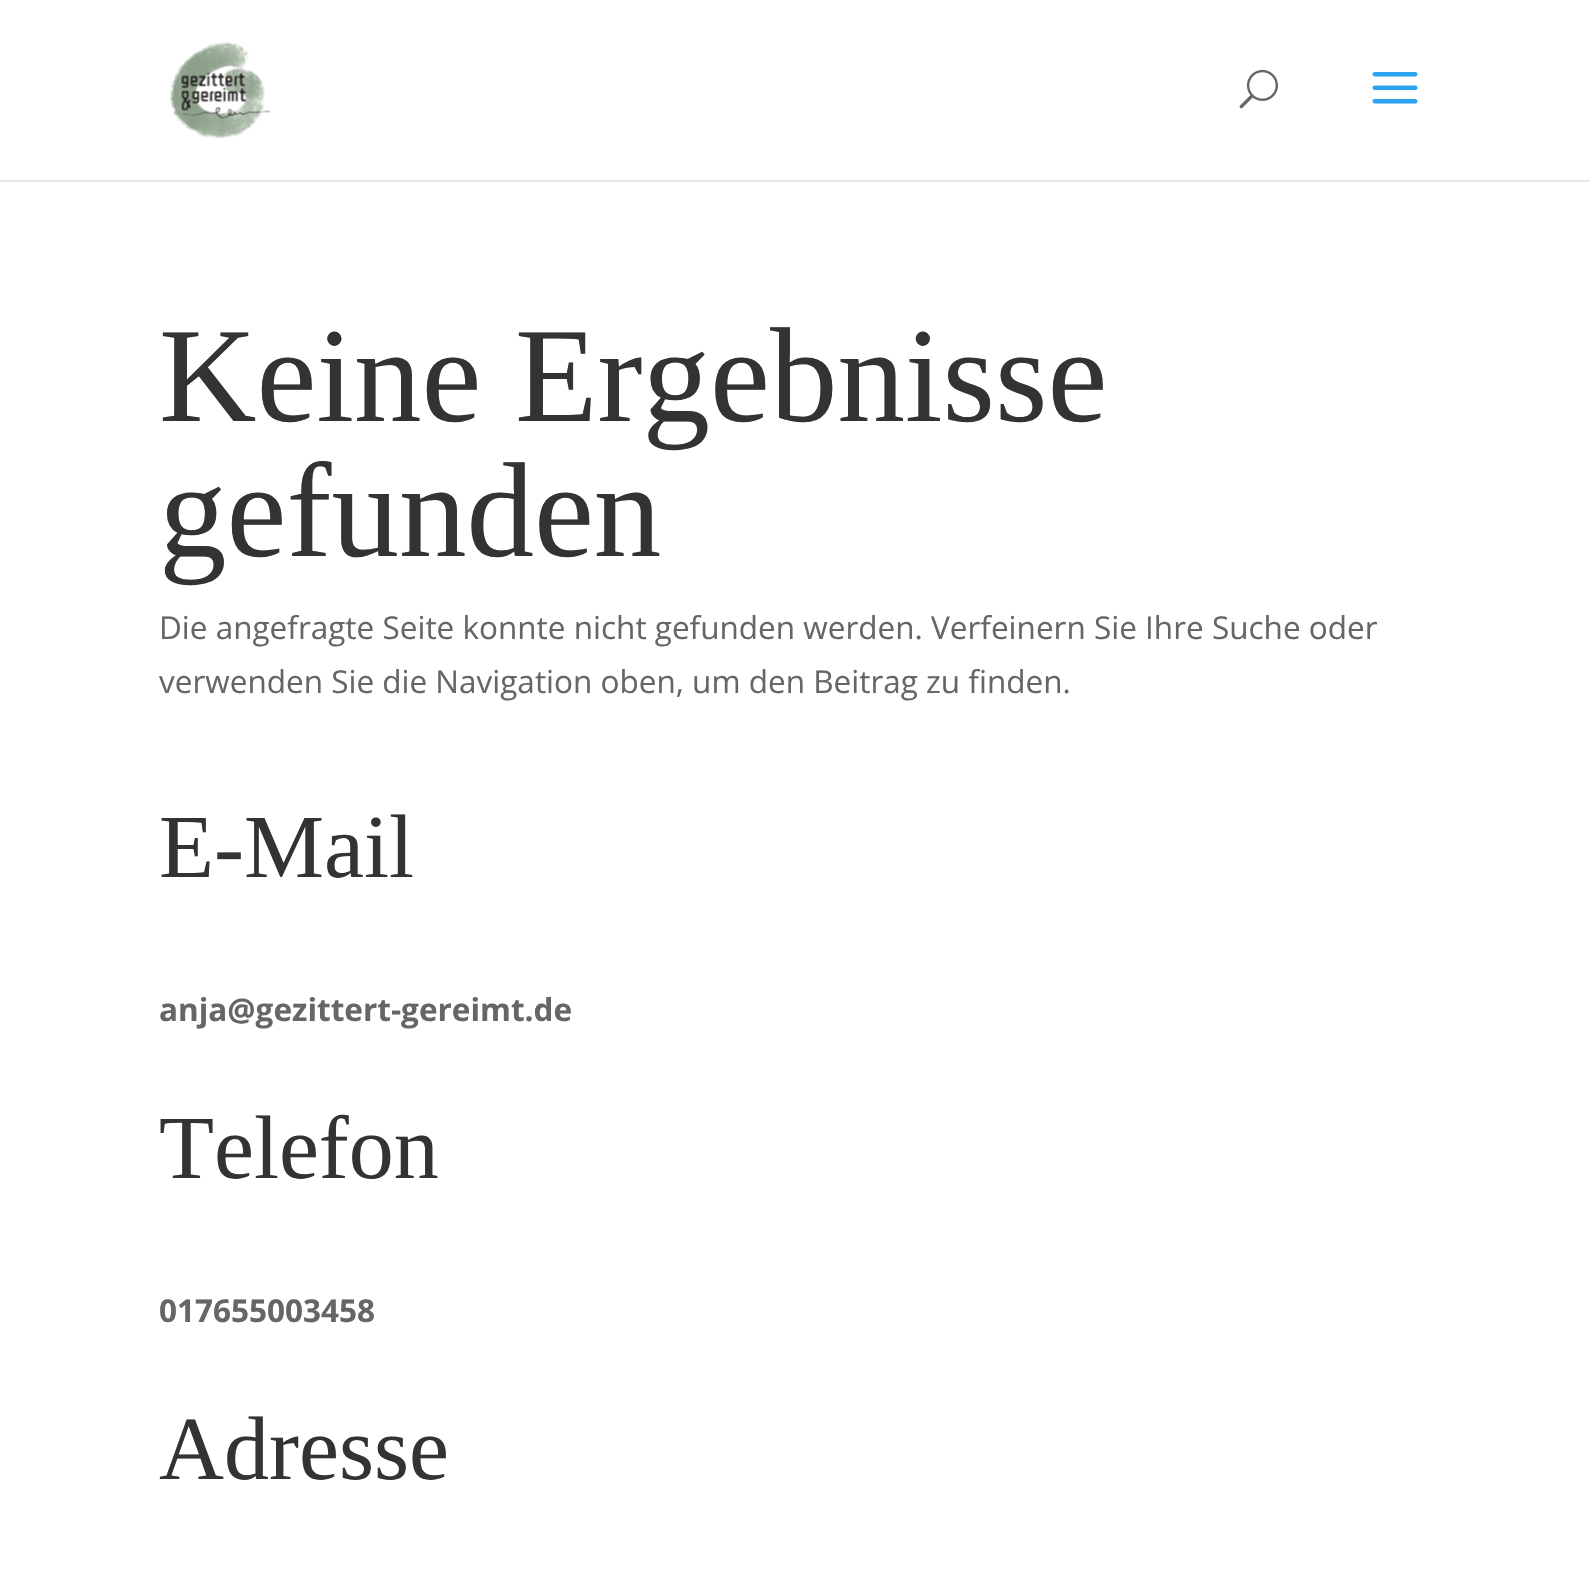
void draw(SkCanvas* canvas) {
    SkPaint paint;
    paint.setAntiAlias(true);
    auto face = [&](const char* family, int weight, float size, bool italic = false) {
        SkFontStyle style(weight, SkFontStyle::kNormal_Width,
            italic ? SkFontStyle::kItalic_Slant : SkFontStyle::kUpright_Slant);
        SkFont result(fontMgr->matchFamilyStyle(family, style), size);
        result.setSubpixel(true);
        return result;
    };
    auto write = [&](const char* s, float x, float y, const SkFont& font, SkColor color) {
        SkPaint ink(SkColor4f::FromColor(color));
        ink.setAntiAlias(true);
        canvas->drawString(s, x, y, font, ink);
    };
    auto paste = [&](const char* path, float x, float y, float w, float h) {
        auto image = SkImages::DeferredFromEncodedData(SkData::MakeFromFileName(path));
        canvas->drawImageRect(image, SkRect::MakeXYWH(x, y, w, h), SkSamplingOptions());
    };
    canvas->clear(SK_ColorWHITE);
    paint.setColor(SkColorSetRGB(230, 230, 230));
    canvas->drawPath(SkPathBuilder().moveTo(0, 180).lineTo(0, 182).lineTo(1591, 182).lineTo(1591, 2).lineTo(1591, 180).close().detach(), paint);
    paste("pic1.png", 170, 41, 101, 98);
    paste("pic2.png", 1239, 69, 39, 40);
    paste("pic3.png", 1372, 72, 46, 32);
    auto kFont1 = face("Liberation Serif", 400, 135);
    write("Keine Ergebnisse", 159, 421, kFont1, SkColorSetRGB(51, 51, 51));
    write("gefunden", 159, 556, kFont1, SkColorSetRGB(51, 51, 51));
    auto kFont2 = face("Open Sans", 400, 31.5f);
    write("Die angefragte Seite konnte nicht gefunden werden. Verfeinern Sie Ihre Suche oder", 159, 639, kFont2, SkColorSetRGB(102, 102, 102));
    write("verwenden Sie die Navigation oben, um den Beitrag zu finden.", 159, 693, kFont2, SkColorSetRGB(102, 102, 102));
    auto kFont3 = face("Liberation Serif", 400, 90);
    write("E-Mail", 159, 877, kFont3, SkColorSetRGB(51, 51, 51));
    auto kFont4 = face("Open Sans", 700, 31.5f);
    write("anja@gezittert-gereimt.de", 159, 1021, kFont4, SkColorSetRGB(102, 102, 102));
    write("Telefon", 159, 1178, kFont3, SkColorSetRGB(51, 51, 51));
    write("017655003458", 159, 1322, kFont4, SkColorSetRGB(102, 102, 102));
    write("Adresse", 159, 1479, kFont3, SkColorSetRGB(51, 51, 51));
}
